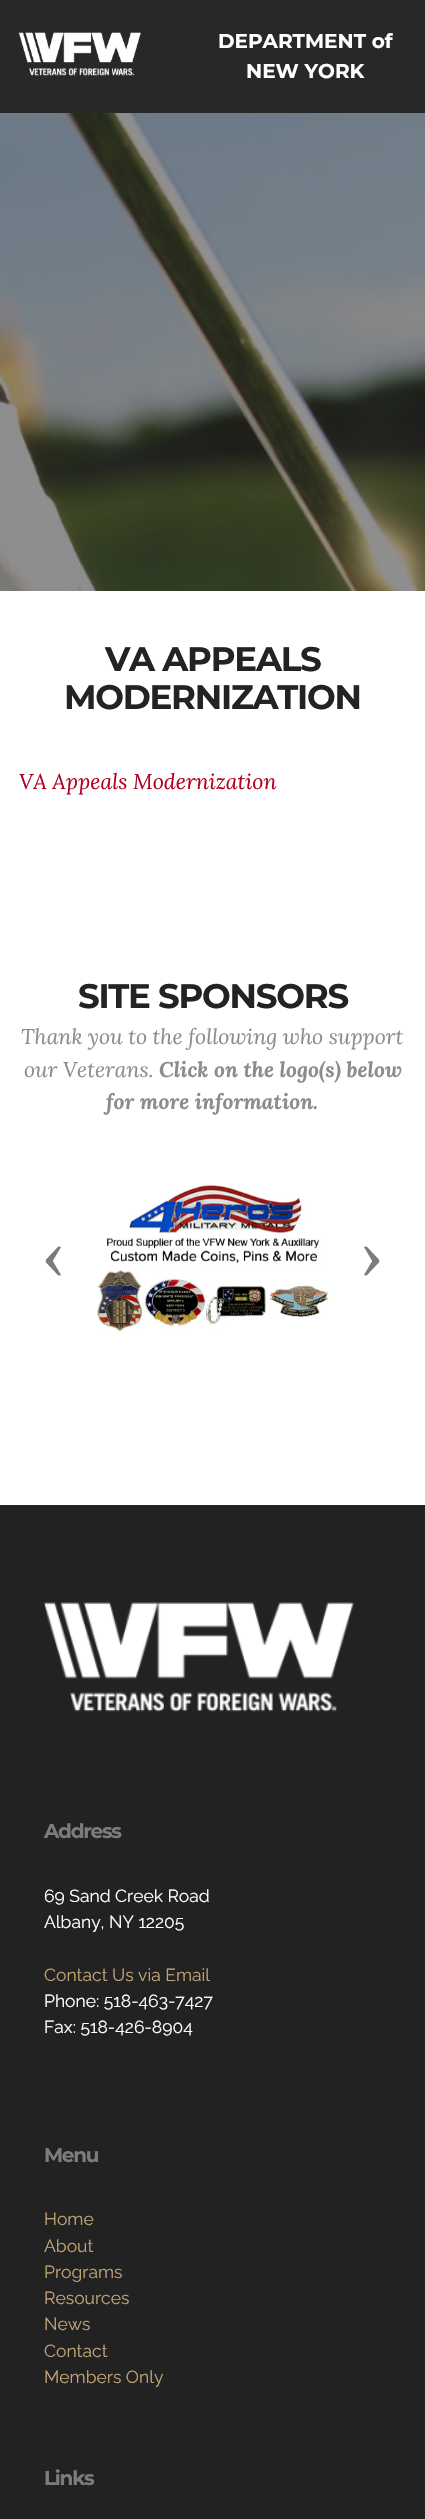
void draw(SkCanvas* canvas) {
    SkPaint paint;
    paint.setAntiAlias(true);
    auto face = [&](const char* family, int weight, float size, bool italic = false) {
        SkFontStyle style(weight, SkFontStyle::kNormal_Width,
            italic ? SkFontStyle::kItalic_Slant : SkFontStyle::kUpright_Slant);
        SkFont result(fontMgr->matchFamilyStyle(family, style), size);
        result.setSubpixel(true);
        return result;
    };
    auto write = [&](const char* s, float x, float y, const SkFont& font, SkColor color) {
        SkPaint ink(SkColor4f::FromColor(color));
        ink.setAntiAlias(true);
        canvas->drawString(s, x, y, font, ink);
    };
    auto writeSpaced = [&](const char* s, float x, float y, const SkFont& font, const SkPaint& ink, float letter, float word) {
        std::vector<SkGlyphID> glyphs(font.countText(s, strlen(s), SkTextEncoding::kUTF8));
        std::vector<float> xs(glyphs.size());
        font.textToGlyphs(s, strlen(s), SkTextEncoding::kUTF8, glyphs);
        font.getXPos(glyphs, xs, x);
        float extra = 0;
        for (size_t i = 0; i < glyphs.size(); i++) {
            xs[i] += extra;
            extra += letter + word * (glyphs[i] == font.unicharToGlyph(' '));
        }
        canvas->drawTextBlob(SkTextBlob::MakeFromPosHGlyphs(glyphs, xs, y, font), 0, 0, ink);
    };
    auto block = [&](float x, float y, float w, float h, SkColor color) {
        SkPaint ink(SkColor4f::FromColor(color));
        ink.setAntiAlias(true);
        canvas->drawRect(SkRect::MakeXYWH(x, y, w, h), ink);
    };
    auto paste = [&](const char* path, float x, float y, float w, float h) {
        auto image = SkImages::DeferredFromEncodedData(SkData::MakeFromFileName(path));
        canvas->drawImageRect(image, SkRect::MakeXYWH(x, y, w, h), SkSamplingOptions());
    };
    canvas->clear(SK_ColorWHITE);
    block(0, 0, 425, 113, SkColorSetRGB(40, 40, 40));
    paste("pic1.png", 18, 32, 123, 44);
    auto kFont1 = face("Montserrat", 700, 20);
    write("DEPARTMENT of", 218, 48, kFont1, SK_ColorWHITE);
    write("NEW YORK", 246, 78, kFont1, SK_ColorWHITE);
    paste("pic2.png", 0, 113, 425, 478);
    auto kFont2 = face("Montserrat", 700, 34);
    paint.setColor(SkColorSetRGB(35, 35, 35));
    writeSpaced("VA APPEALS", 105, 671, kFont2, paint, -1.25f, 0);
    writeSpaced("MODERNIZATION", 64, 709, kFont2, paint, -1.25f, 0);
    auto kFont3 = face("Lora", 400, 21.4f, true);
    write("VA Appeals Modernization", 19, 789, kFont3, SkColorSetRGB(178, 0, 36));
    writeSpaced("SITE SPONSORS", 78, 1008, kFont2, paint, -1.25f, 0);
    auto kFont4 = face("Lora", 400, 21.25f, true);
    write("Thank you to the following who support", 21, 1044, kFont4, SkColorSetRGB(140, 140, 140));
    write("our Veterans.", 24, 1077, kFont4, SkColorSetRGB(140, 140, 140));
    auto kFont5 = face("Lora", 700, 21.25f, true);
    write("Click on the logo(s) below", 159, 1077, kFont5, SkColorSetRGB(140, 140, 140));
    write("for more information.", 106, 1109, kFont5, SkColorSetRGB(140, 140, 140));
    auto kFont6 = face("Liberation Serif", 400, 75);
    write("‹", 41, 1278, kFont6, SkColorSetRGB(124, 124, 124));
    paste("pic3.png", 97, 1185, 232, 147);
    write("›", 359, 1278, kFont6, SkColorSetRGB(124, 124, 124));
    block(0, 1505, 425, 1014, SkColorSetRGB(34, 34, 34));
    paste("pic4.png", 43, 1602, 311, 110);
    paint.setColor(SkColorSetRGB(124, 124, 124));
    writeSpaced("Address", 44, 1838, kFont1, paint, -1.25f, 0);
    auto kFont7 = face("Raleway", 400, 17.5f);
    write("69 Sand Creek Road", 44, 1902, kFont7, SK_ColorWHITE);
    write("Albany, NY 12205", 44, 1928, kFont7, SK_ColorWHITE);
    write("Contact Us via Email", 44, 1981, kFont7, SkColorSetRGB(192, 163, 117));
    write("Phone: 518-463-7427", 44, 2007, kFont7, SK_ColorWHITE);
    write("Fax: 518-426-8904", 44, 2033, kFont7, SK_ColorWHITE);
    writeSpaced("Menu", 44, 2162, kFont1, paint, -1.25f, 0);
    write("Home", 44, 2225, kFont7, SkColorSetRGB(192, 163, 117));
    write("About", 44, 2252, kFont7, SkColorSetRGB(192, 163, 117));
    write("Programs", 44, 2278, kFont7, SkColorSetRGB(192, 163, 117));
    write("Resources", 44, 2304, kFont7, SkColorSetRGB(192, 163, 117));
    write("News", 44, 2330, kFont7, SkColorSetRGB(192, 163, 117));
    write("Contact", 44, 2357, kFont7, SkColorSetRGB(192, 163, 117));
    write("Members Only", 44, 2383, kFont7, SkColorSetRGB(192, 163, 117));
    writeSpaced("Links", 44, 2485, kFont1, paint, -1.25f, 0);
}
